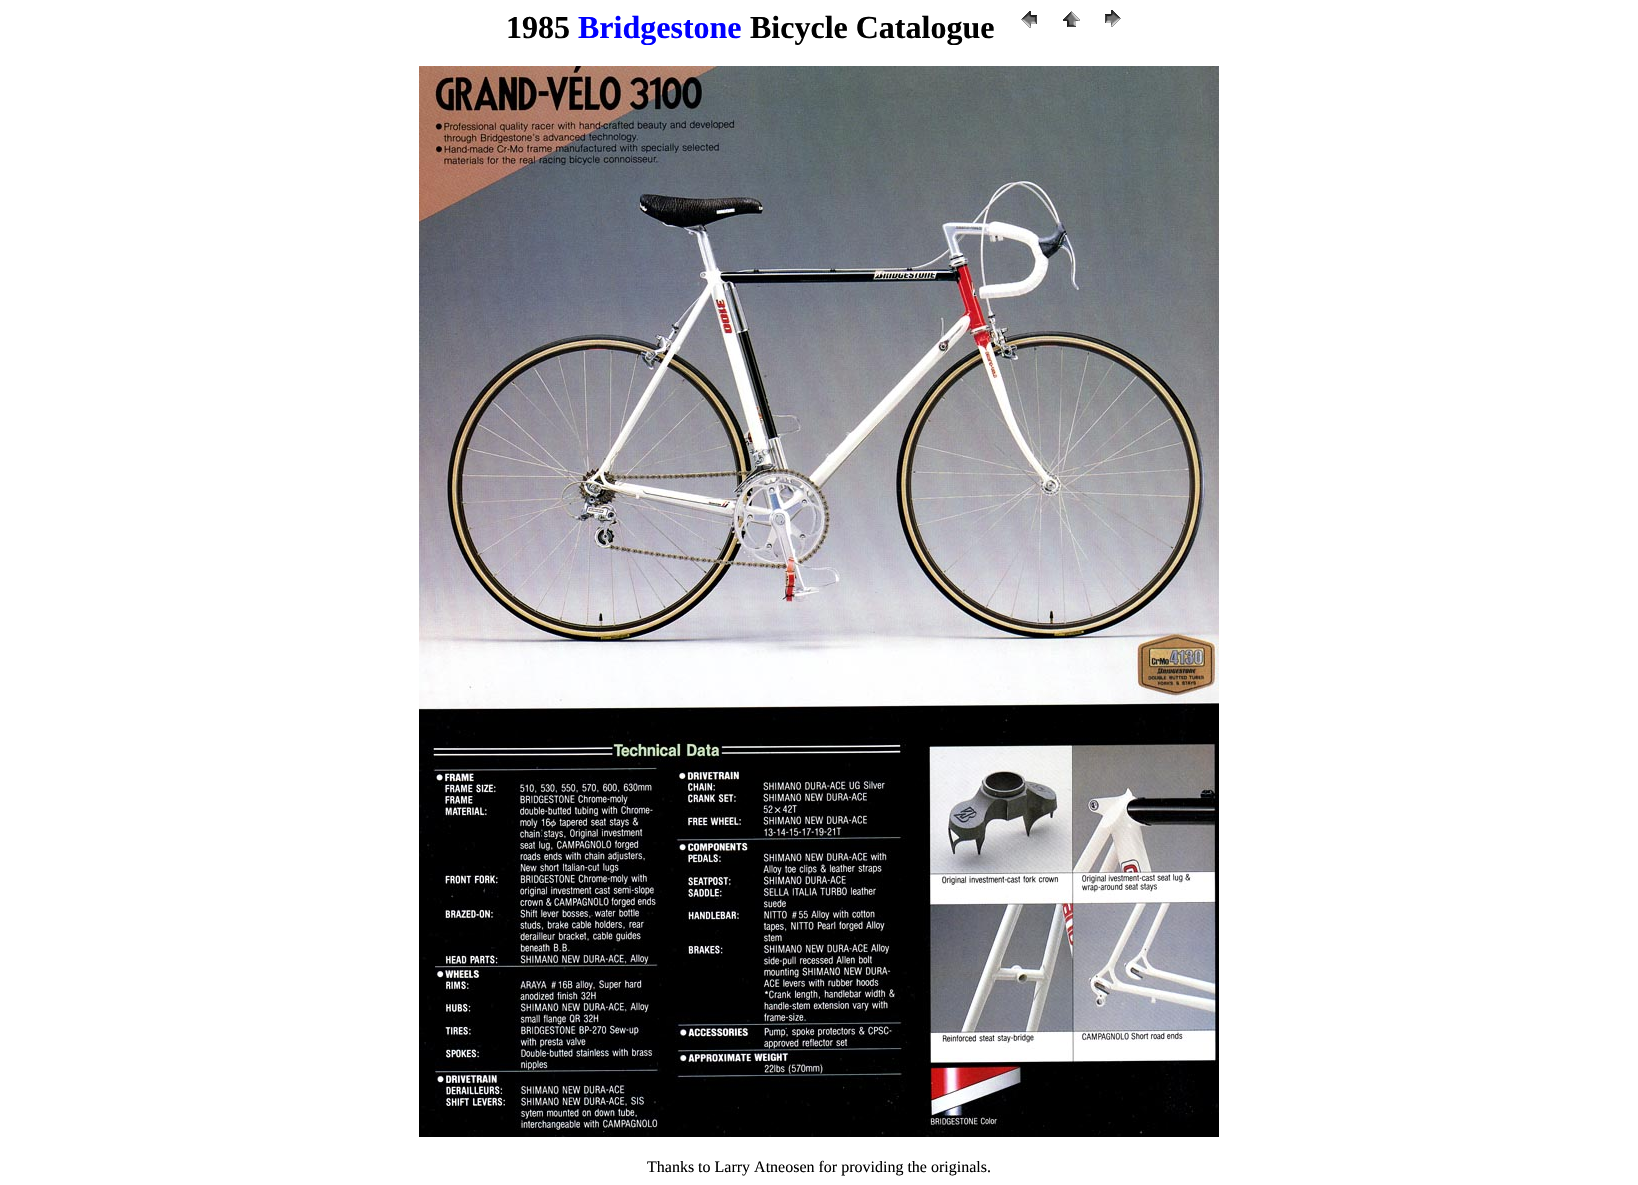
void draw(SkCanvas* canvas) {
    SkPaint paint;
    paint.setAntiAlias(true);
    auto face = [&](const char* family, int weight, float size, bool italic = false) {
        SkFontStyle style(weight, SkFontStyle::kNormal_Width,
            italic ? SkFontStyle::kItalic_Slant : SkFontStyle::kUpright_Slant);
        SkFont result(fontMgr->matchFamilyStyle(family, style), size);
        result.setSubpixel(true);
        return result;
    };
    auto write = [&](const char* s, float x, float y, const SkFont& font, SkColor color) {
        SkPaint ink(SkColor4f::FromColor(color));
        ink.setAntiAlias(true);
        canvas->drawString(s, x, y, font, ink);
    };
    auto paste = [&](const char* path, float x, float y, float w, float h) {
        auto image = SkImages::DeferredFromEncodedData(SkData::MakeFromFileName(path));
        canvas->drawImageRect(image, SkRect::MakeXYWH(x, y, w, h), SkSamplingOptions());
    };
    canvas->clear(SK_ColorWHITE);
    auto kFont1 = face("Liberation Serif", 700, 32);
    write("1985", 506, 38, kFont1, SK_ColorBLACK);
    write("Bridgestone", 578, 38, kFont1, SkColorSetRGB(0, 0, 255));
    write("Bicycle Catalogue", 750, 38, kFont1, SK_ColorBLACK);
    paste("pic1.png", 1021, 11, 16, 17);
    paste("pic2.png", 1063, 11, 17, 16);
    paste("pic3.png", 1105, 10, 16, 17);
    paste("pic4.png", 419, 66, 800, 1071);
    auto kFont2 = face("Liberation Serif", 400, 16);
    write("Thanks to Larry Atneosen for providing the originals.", 647, 1172, kFont2, SK_ColorBLACK);
}
